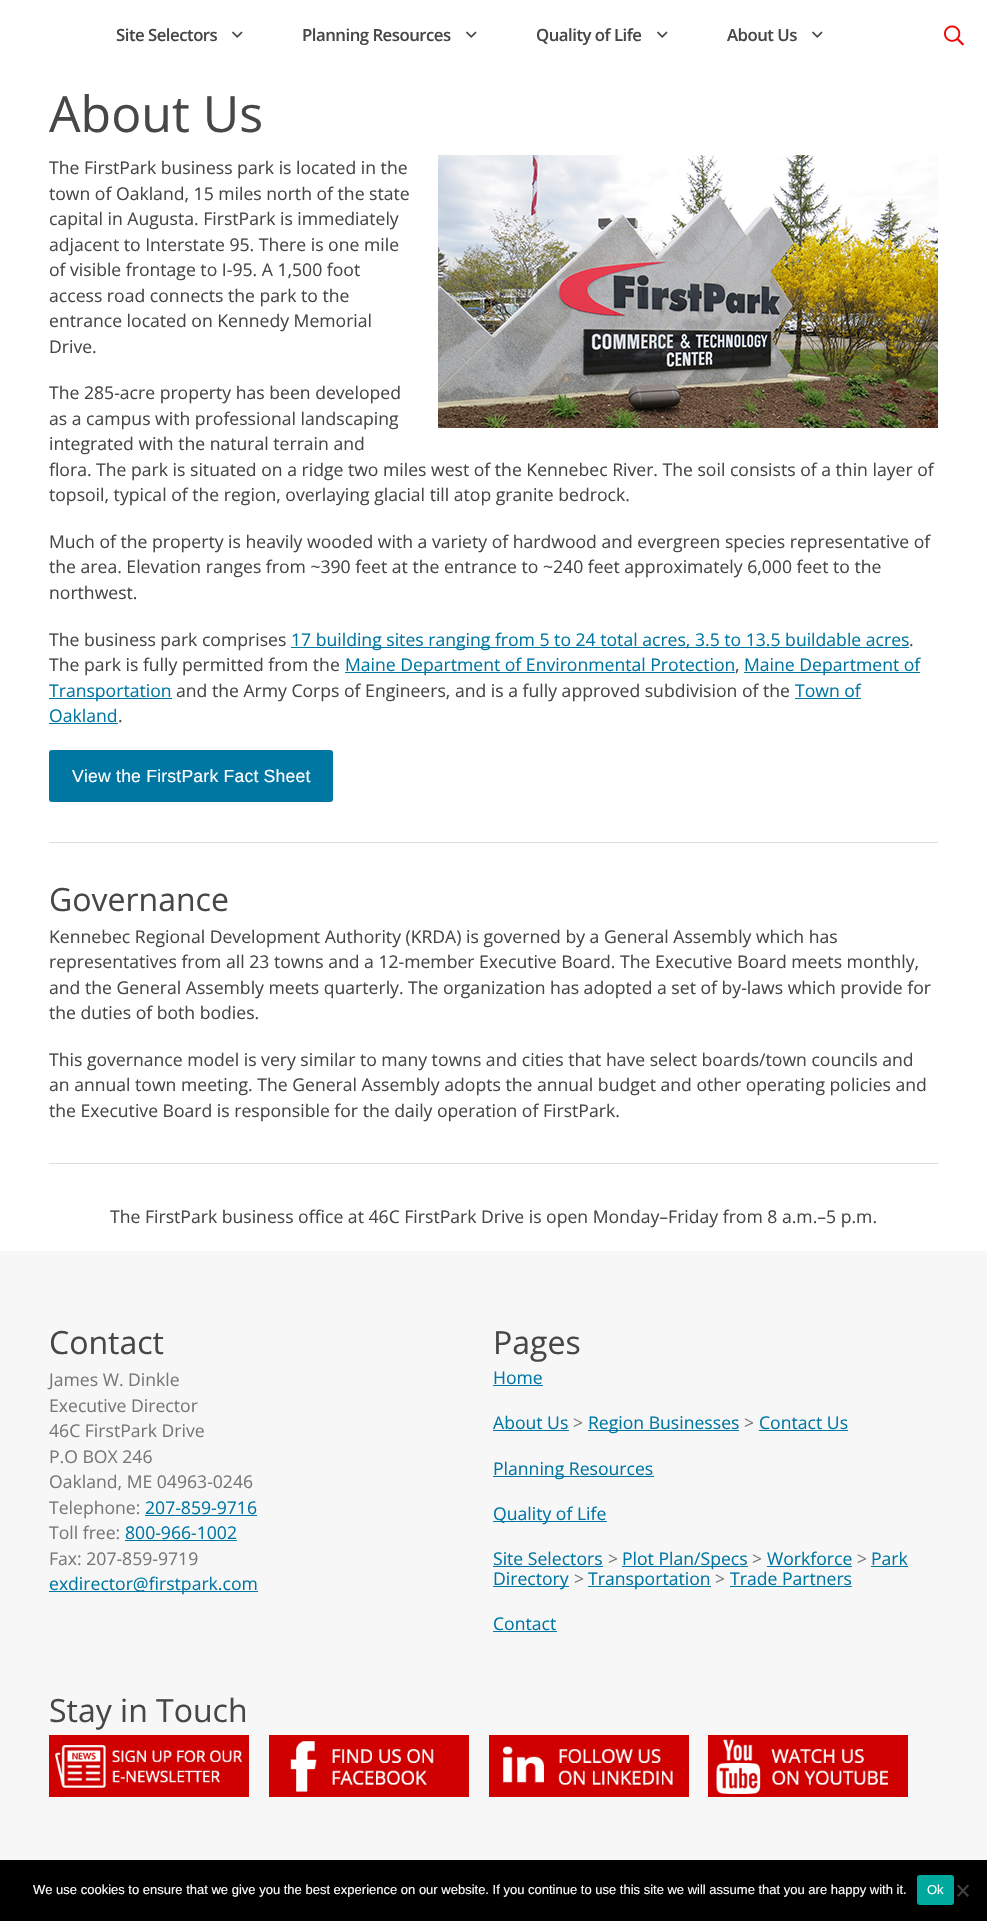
void draw(SkCanvas* canvas) {
    SkPaint paint;
    paint.setAntiAlias(true);
    auto face = [&](const char* family, int weight, float size, bool italic = false) {
        SkFontStyle style(weight, SkFontStyle::kNormal_Width,
            italic ? SkFontStyle::kItalic_Slant : SkFontStyle::kUpright_Slant);
        SkFont result(fontMgr->matchFamilyStyle(family, style), size);
        result.setSubpixel(true);
        return result;
    };
    auto write = [&](const char* s, float x, float y, const SkFont& font, SkColor color) {
        SkPaint ink(SkColor4f::FromColor(color));
        ink.setAntiAlias(true);
        canvas->drawString(s, x, y, font, ink);
    };
    auto writeSpaced = [&](const char* s, float x, float y, const SkFont& font, const SkPaint& ink, float letter, float word) {
        std::vector<SkGlyphID> glyphs(font.countText(s, strlen(s), SkTextEncoding::kUTF8));
        std::vector<float> xs(glyphs.size());
        font.textToGlyphs(s, strlen(s), SkTextEncoding::kUTF8, glyphs);
        font.getXPos(glyphs, xs, x);
        float extra = 0;
        for (size_t i = 0; i < glyphs.size(); i++) {
            xs[i] += extra;
            extra += letter + word * (glyphs[i] == font.unicharToGlyph(' '));
        }
        canvas->drawTextBlob(SkTextBlob::MakeFromPosHGlyphs(glyphs, xs, y, font), 0, 0, ink);
    };
    auto block = [&](float x, float y, float w, float h, SkColor color) {
        SkPaint ink(SkColor4f::FromColor(color));
        ink.setAntiAlias(true);
        canvas->drawRect(SkRect::MakeXYWH(x, y, w, h), ink);
    };
    auto card = [&](float x, float y, float w, float h, float radius, SkColor color) {
        SkPaint ink(SkColor4f::FromColor(color));
        ink.setAntiAlias(true);
        canvas->drawRoundRect(SkRect::MakeXYWH(x, y, w, h), radius, radius, ink);
    };
    auto paste = [&](const char* path, float x, float y, float w, float h) {
        auto image = SkImages::DeferredFromEncodedData(SkData::MakeFromFileName(path));
        canvas->drawImageRect(image, SkRect::MakeXYWH(x, y, w, h), SkSamplingOptions());
    };
    canvas->clear(SK_ColorWHITE);
    auto kFont1 = face("Open Sans", 600, 16.75f);
    paint.setColor(SkColorSetRGB(71, 71, 71));
    writeSpaced("Site Selectors", 116, 41, kFont1, paint, -0.5f, 0);
    paste("pic1.png", 232, 31, 11, 7);
    writeSpaced("Planning Resources", 302, 41, kFont1, paint, -0.5f, 0);
    paste("pic1.png", 466, 31, 11, 7);
    writeSpaced("Quality of Life", 536, 41, kFont1, paint, -0.5f, 0);
    paste("pic1.png", 657, 31, 11, 7);
    writeSpaced("About Us", 727, 41, kFont1, paint, -0.5f, 0);
    paste("pic1.png", 812, 31, 11, 7);
    paste("pic2.png", 944, 25, 20, 21);
    auto kFont2 = face("Open Sans", 400, 50);
    write("About Us", 49, 132, kFont2, SkColorSetRGB(71, 71, 71));
    auto kFont3 = face("Open Sans", 400, 17.6f);
    write("The FirstPark business park is located in the", 49, 174, kFont3, SkColorSetRGB(71, 71, 71));
    paste("pic3.png", 438, 155, 500, 273);
    write("town of Oakland, 15 miles north of the state", 49, 200, kFont3, SkColorSetRGB(71, 71, 71));
    write("capital in Augusta. FirstPark is immediately", 49, 225, kFont3, SkColorSetRGB(71, 71, 71));
    write("adjacent to Interstate 95. There is one mile", 49, 251, kFont3, SkColorSetRGB(71, 71, 71));
    write("of visible frontage to I-95. A 1,500 foot", 49, 276, kFont3, SkColorSetRGB(71, 71, 71));
    write("access road connects the park to the", 49, 302, kFont3, SkColorSetRGB(71, 71, 71));
    write("entrance located on Kennedy Memorial", 49, 327, kFont3, SkColorSetRGB(71, 71, 71));
    write("Drive.", 49, 353, kFont3, SkColorSetRGB(71, 71, 71));
    write("The 285-acre property has been developed", 49, 399, kFont3, SkColorSetRGB(71, 71, 71));
    write("as a campus with professional landscaping", 49, 425, kFont3, SkColorSetRGB(71, 71, 71));
    write("integrated with the natural terrain and", 49, 450, kFont3, SkColorSetRGB(71, 71, 71));
    write("flora. The park is situated on a ridge two miles west of the Kennebec River. The soil consists of a thin layer of", 49, 476, kFont3, SkColorSetRGB(71, 71, 71));
    write("topsoil, typical of the region, overlaying glacial till atop granite bedrock.", 49, 501, kFont3, SkColorSetRGB(71, 71, 71));
    write("Much of the property is heavily wooded with a variety of hardwood and evergreen species representative of", 49, 548, kFont3, SkColorSetRGB(71, 71, 71));
    write("the area. Elevation ranges from ~390 feet at the entrance to ~240 feet approximately 6,000 feet to the", 49, 573, kFont3, SkColorSetRGB(71, 71, 71));
    write("northwest.", 49, 599, kFont3, SkColorSetRGB(71, 71, 71));
    write("The business park comprises", 49, 646, kFont3, SkColorSetRGB(71, 71, 71));
    block(291, 647, 618, 1, SkColorSetRGB(0, 118, 163));
    write("17 building sites ranging from 5 to 24 total acres, 3.5 to 13.5 buildable acres", 291, 646, kFont3, SkColorSetRGB(0, 118, 163));
    write(".", 909, 646, kFont3, SkColorSetRGB(71, 71, 71));
    write("The park is fully permitted from the", 49, 671, kFont3, SkColorSetRGB(71, 71, 71));
    block(345, 672, 390, 1, SkColorSetRGB(0, 118, 163));
    write("Maine Department of Environmental Protection", 345, 671, kFont3, SkColorSetRGB(0, 118, 163));
    write(",", 735, 671, kFont3, SkColorSetRGB(71, 71, 71));
    block(744, 672, 176, 1, SkColorSetRGB(0, 118, 163));
    write("Maine Department of", 744, 671, kFont3, SkColorSetRGB(0, 118, 163));
    block(49, 698, 123, 1, SkColorSetRGB(0, 118, 163));
    write("Transportation", 49, 697, kFont3, SkColorSetRGB(0, 118, 163));
    write("and the Army Corps of Engineers, and is a fully approved subdivision of the", 176, 697, kFont3, SkColorSetRGB(71, 71, 71));
    write("Town of", 795, 697, kFont3, SkColorSetRGB(0, 118, 163));
    block(795, 698, 66, 1, SkColorSetRGB(0, 118, 163));
    write("Oakland", 49, 722, kFont3, SkColorSetRGB(0, 118, 163));
    block(49, 723, 69, 1, SkColorSetRGB(0, 118, 163));
    write(".", 118, 722, kFont3, SkColorSetRGB(71, 71, 71));
    card(49, 750, 284, 52, 3, SkColorSetRGB(0, 118, 163));
    auto kFont4 = face("Liberation Sans", 400, 17.6f);
    paint.setColor(SK_ColorWHITE);
    writeSpaced("View the FirstPark Fact Sheet", 72, 782, kFont4, paint, 0.2f, 0);
    block(49, 842, 889, 1, SkColorSetRGB(221, 221, 221));
    auto kFont5 = face("Open Sans", 400, 32);
    write("Governance", 49, 911, kFont5, SkColorSetRGB(71, 71, 71));
    write("Kennebec Regional Development Authority (KRDA) is governed by a General Assembly which has", 49, 943, kFont3, SkColorSetRGB(71, 71, 71));
    write("representatives from all 23 towns and a 12-member Executive Board. The Executive Board meets monthly,", 49, 968, kFont3, SkColorSetRGB(71, 71, 71));
    write("and the General Assembly meets quarterly. The organization has adopted a set of by-laws which provide for", 49, 994, kFont3, SkColorSetRGB(71, 71, 71));
    write("the duties of both bodies.", 49, 1019, kFont3, SkColorSetRGB(71, 71, 71));
    write("This governance model is very similar to many towns and cities that have select boards/town councils and", 49, 1066, kFont3, SkColorSetRGB(71, 71, 71));
    write("an annual town meeting. The General Assembly adopts the annual budget and other operating policies and", 49, 1091, kFont3, SkColorSetRGB(71, 71, 71));
    write("the Executive Board is responsible for the daily operation of FirstPark.", 49, 1117, kFont3, SkColorSetRGB(71, 71, 71));
    block(49, 1163, 889, 1, SkColorSetRGB(221, 221, 221));
    write("The FirstPark business office at 46C FirstPark Drive is open Monday–Friday from 8 a.m.–5 p.m.", 110, 1223, kFont3, SkColorSetRGB(71, 71, 71));
    block(0, 1251, 987, 609, SkColorSetRGB(247, 247, 247));
    write("Contact", 49, 1354, kFont5, SkColorSetRGB(71, 71, 71));
    write("James W. Dinkle", 49, 1386, kFont3, SkColorSetRGB(119, 119, 119));
    write("Executive Director", 49, 1412, kFont3, SkColorSetRGB(119, 119, 119));
    write("46C FirstPark Drive", 49, 1437, kFont3, SkColorSetRGB(119, 119, 119));
    write("P.O BOX 246", 49, 1463, kFont3, SkColorSetRGB(119, 119, 119));
    write("Oakland, ME 04963-0246", 49, 1488, kFont3, SkColorSetRGB(119, 119, 119));
    write("Telephone:", 49, 1514, kFont3, SkColorSetRGB(119, 119, 119));
    write("207-859-9716", 145, 1514, kFont3, SkColorSetRGB(0, 118, 163));
    block(145, 1515, 112, 1, SkColorSetRGB(0, 118, 163));
    write("Toll free:", 49, 1539, kFont3, SkColorSetRGB(119, 119, 119));
    write("800-966-1002", 125, 1539, kFont3, SkColorSetRGB(0, 118, 163));
    block(125, 1540, 112, 1, SkColorSetRGB(0, 118, 163));
    write("Fax: 207-859-9719", 49, 1565, kFont3, SkColorSetRGB(119, 119, 119));
    block(49, 1591, 209, 1, SkColorSetRGB(0, 118, 163));
    write("exdirector@firstpark.com", 49, 1590, kFont3, SkColorSetRGB(0, 118, 163));
    write("Pages", 493, 1354, kFont5, SkColorSetRGB(71, 71, 71));
    write("Home", 493, 1384, kFont3, SkColorSetRGB(0, 118, 163));
    block(493, 1385, 50, 1, SkColorSetRGB(0, 118, 163));
    write("About Us", 493, 1429, kFont3, SkColorSetRGB(0, 118, 163));
    block(493, 1430, 76, 1, SkColorSetRGB(0, 118, 163));
    write(">", 573, 1429, kFont3, SkColorSetRGB(119, 119, 119));
    block(588, 1430, 151, 1, SkColorSetRGB(0, 118, 163));
    write("Region Businesses", 588, 1429, kFont3, SkColorSetRGB(0, 118, 163));
    write(">", 744, 1429, kFont3, SkColorSetRGB(119, 119, 119));
    write("Contact Us", 759, 1429, kFont3, SkColorSetRGB(0, 118, 163));
    block(759, 1430, 89, 1, SkColorSetRGB(0, 118, 163));
    block(493, 1476, 161, 1, SkColorSetRGB(0, 118, 163));
    write("Planning Resources", 493, 1475, kFont3, SkColorSetRGB(0, 118, 163));
    block(493, 1521, 114, 1, SkColorSetRGB(0, 118, 163));
    write("Quality of Life", 493, 1520, kFont3, SkColorSetRGB(0, 118, 163));
    write("Site Selectors", 493, 1565, kFont3, SkColorSetRGB(0, 118, 163));
    block(493, 1566, 110, 1, SkColorSetRGB(0, 118, 163));
    write(">", 608, 1565, kFont3, SkColorSetRGB(119, 119, 119));
    block(622, 1566, 126, 1, SkColorSetRGB(0, 118, 163));
    write("Plot Plan/Specs", 622, 1565, kFont3, SkColorSetRGB(0, 118, 163));
    write(">", 752, 1565, kFont3, SkColorSetRGB(119, 119, 119));
    write("Workforce", 767, 1565, kFont3, SkColorSetRGB(0, 118, 163));
    block(767, 1566, 85, 1, SkColorSetRGB(0, 118, 163));
    write(">", 857, 1565, kFont3, SkColorSetRGB(119, 119, 119));
    write("Park", 871, 1565, kFont3, SkColorSetRGB(0, 118, 163));
    block(871, 1566, 37, 1, SkColorSetRGB(0, 118, 163));
    block(493, 1586, 76, 1, SkColorSetRGB(0, 118, 163));
    write("Directory", 493, 1585, kFont3, SkColorSetRGB(0, 118, 163));
    write(">", 574, 1585, kFont3, SkColorSetRGB(119, 119, 119));
    block(588, 1586, 123, 1, SkColorSetRGB(0, 118, 163));
    write("Transportation", 588, 1585, kFont3, SkColorSetRGB(0, 118, 163));
    write(">", 715, 1585, kFont3, SkColorSetRGB(119, 119, 119));
    write("Trade Partners", 730, 1585, kFont3, SkColorSetRGB(0, 118, 163));
    block(730, 1586, 122, 1, SkColorSetRGB(0, 118, 163));
    write("Contact", 493, 1630, kFont3, SkColorSetRGB(0, 118, 163));
    block(493, 1631, 64, 1, SkColorSetRGB(0, 118, 163));
    write("Stay in Touch", 49, 1722, kFont5, SkColorSetRGB(71, 71, 71));
    paste("pic4.png", 49, 1735, 200, 62);
    paste("pic5.png", 269, 1735, 200, 62);
    paste("pic6.png", 489, 1735, 200, 62);
    paste("pic7.png", 708, 1735, 200, 62);
    block(0, 1860, 987, 61, SK_ColorBLACK);
    auto kFont6 = face("Liberation Sans", 400, 13);
    write("We use cookies to ensure that we give you the best experience on our website. If you continue to use this site we will assume that you are happy with it.", 33, 1894, kFont6, SK_ColorWHITE);
    card(917, 1875, 37, 30, 3, SkColorSetRGB(0, 169, 157));
    write("Ok", 927, 1894, kFont6, SK_ColorWHITE);
    paint.setColor(SkColorSetRGB(64, 64, 64));
    canvas->drawPath(SkPathBuilder().moveTo(967.5f, 1884.5f).lineTo(969, 1886).lineTo(958.5f, 1897).lineTo(957, 1895.5f).close().detach(), paint);
    canvas->drawPath(SkPathBuilder().moveTo(957, 1886).lineTo(958.5f, 1884.5f).lineTo(969, 1895.5f).lineTo(967.5f, 1897).close().detach(), paint);
}
